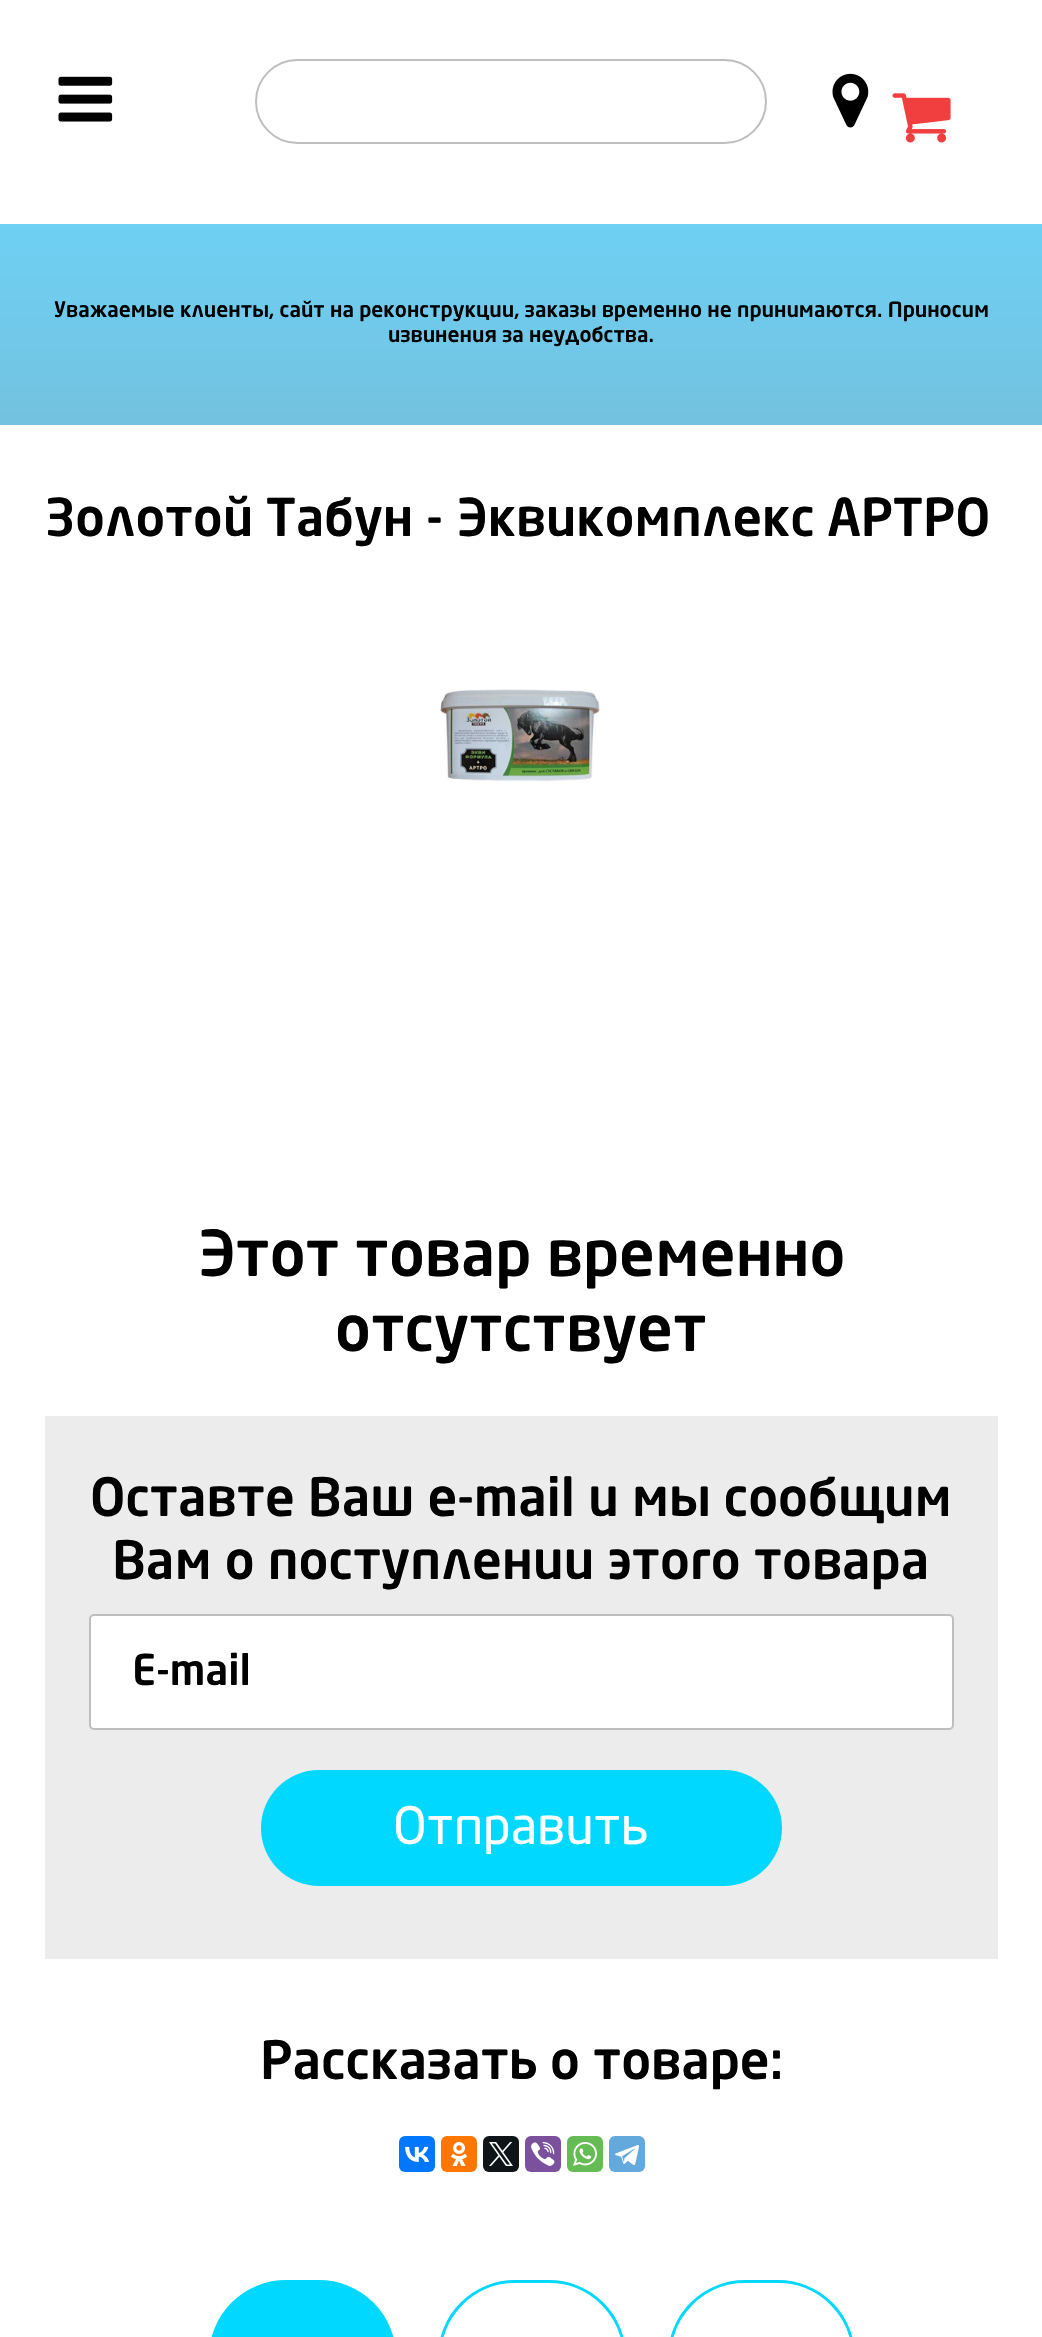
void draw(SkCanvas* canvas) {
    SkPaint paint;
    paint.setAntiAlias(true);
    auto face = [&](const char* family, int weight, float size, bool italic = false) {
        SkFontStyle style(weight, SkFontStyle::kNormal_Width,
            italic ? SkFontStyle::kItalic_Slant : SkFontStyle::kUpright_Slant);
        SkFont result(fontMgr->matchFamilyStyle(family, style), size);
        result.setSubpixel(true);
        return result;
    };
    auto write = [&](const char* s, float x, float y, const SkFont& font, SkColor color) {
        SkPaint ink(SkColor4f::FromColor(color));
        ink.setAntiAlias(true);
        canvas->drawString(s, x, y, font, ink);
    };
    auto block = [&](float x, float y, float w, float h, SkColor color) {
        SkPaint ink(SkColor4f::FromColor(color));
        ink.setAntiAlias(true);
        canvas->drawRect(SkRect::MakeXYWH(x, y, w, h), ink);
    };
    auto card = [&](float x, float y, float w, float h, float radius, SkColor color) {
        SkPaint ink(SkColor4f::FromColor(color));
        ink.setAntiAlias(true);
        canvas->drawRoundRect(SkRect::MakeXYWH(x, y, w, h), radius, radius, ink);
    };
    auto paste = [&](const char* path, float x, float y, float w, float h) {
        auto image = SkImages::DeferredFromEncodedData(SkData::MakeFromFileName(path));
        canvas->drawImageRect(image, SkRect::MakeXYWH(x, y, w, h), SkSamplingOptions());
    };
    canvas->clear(SK_ColorWHITE);
    paste("pic1.png", 58, 76, 55, 46);
    paint.setStyle(SkPaint::kStroke_Style);
    paint.setStrokeWidth(2);
    paint.setColor(SkColorSetRGB(190, 190, 190));
    canvas->drawRoundRect(SkRect::MakeXYWH(256, 60, 510, 83), 41.5f, 41.5f, paint);
    paste("pic2.png", 832, 73, 37, 55);
    paste("pic3.png", 892, 93, 59, 50);
    paint.setStyle(SkPaint::kFill_Style);
    {
        const SkColor colors[] = {SkColorSetRGB(110, 208, 244), SkColorSetRGB(115, 194, 223)};
        const float stops[] = {0, 1};
        const SkPoint ends[] = {{521, 223}, {521, 425}};
        paint.setShader(SkGradientShader::MakeLinear(ends, colors, stops, 2, SkTileMode::kClamp));
        paint.setAlpha(255);
    }
    canvas->drawRect(SkRect::MakeXYWH(0, 224, 1042, 201), paint);
    auto kFont1 = face("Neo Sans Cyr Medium", 500, 21);
    write("Уважаемые клиенты, сайт на реконструкции, заказы временно не принимаются. Приносим", 54, 317, kFont1, SK_ColorBLACK);
    write("извинения за неудобства.", 388, 342, kFont1, SK_ColorBLACK);
    auto kFont2 = face("Neo Sans Cyr Medium", 500, 51.6f);
    write("Золотой Табун - Эквикомплекс АРТРО", 45, 536, kFont2, SK_ColorBLACK);
    paste("pic4.png", 440, 689, 160, 96);
    auto kFont3 = face("Neo Sans Cyr Medium", 500, 62.5f);
    write("Этот товар временно", 197, 1276, kFont3, SK_ColorBLACK);
    write("отсутствует", 335, 1351, kFont3, SK_ColorBLACK);
    block(45, 1416, 953, 543, SkColorSetRGB(236, 236, 236));
    auto kFont4 = face("Neo Sans Cyr Medium", 500, 52.1f);
    write("Оставте Ваш e-mail и мы сообщим", 90, 1516, kFont4, SK_ColorBLACK);
    write("Вам о поступлении этого товара", 112, 1579, kFont4, SK_ColorBLACK);
    paint.setShader(nullptr);
    paint.setColor(SK_ColorWHITE);
    canvas->drawRoundRect(SkRect::MakeXYWH(90, 1615, 863, 114), 4, 4, paint);
    paint.setStyle(SkPaint::kStroke_Style);
    paint.setColor(SkColorSetRGB(190, 190, 190));
    canvas->drawRoundRect(SkRect::MakeXYWH(90, 1615, 863, 114), 4, 4, paint);
    auto kFont5 = face("Neo Sans Cyr Medium", 500, 42);
    write("E-mail", 132, 1685, kFont5, SK_ColorBLACK);
    card(261, 1770, 521, 116, 58, SkColorSetRGB(0, 216, 255));
    auto kFont6 = face("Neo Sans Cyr", 400, 51);
    write("Отправить", 393, 1844, kFont6, SK_ColorWHITE);
    write("Рассказать о товаре:", 260, 2079, kFont4, SK_ColorBLACK);
    card(399, 2136, 36, 36, 6, SkColorSetRGB(0, 119, 255));
    paste("pic5.png", 405, 2146, 24, 16);
    card(441, 2136, 36, 36, 6, SkColorSetRGB(255, 119, 0));
    paste("pic6.png", 451, 2142, 17, 24);
    card(483, 2136, 36, 36, 6, SkColorSetRGB(15, 20, 25));
    paste("pic7.png", 489, 2142, 24, 24);
    card(525, 2136, 36, 36, 6, SkColorSetRGB(123, 81, 157));
    paste("pic8.png", 531, 2142, 24, 24);
    card(567, 2136, 36, 36, 6, SkColorSetRGB(101, 188, 84));
    paste("pic9.png", 573, 2142, 24, 24);
    card(609, 2136, 36, 36, 6, SkColorSetRGB(100, 169, 220));
    paste("pic10.png", 615, 2145, 24, 21);
    paint.setStyle(SkPaint::kFill_Style);
    paint.setColor(SkColorSetRGB(0, 216, 255));
    canvas->drawRoundRect(SkRect::MakeXYWH(210.5f, 2281.5f, 184, 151), 92, 92, paint);
    paint.setStyle(SkPaint::kStroke_Style);
    paint.setStrokeWidth(3);
    canvas->drawRoundRect(SkRect::MakeXYWH(210.5f, 2281.5f, 184, 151), 92, 92, paint);
    canvas->drawRoundRect(SkRect::MakeXYWH(439.5f, 2281.5f, 185, 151), 92.5f, 92.5f, paint);
    canvas->drawRoundRect(SkRect::MakeXYWH(669.5f, 2281.5f, 184, 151), 92, 92, paint);
}
